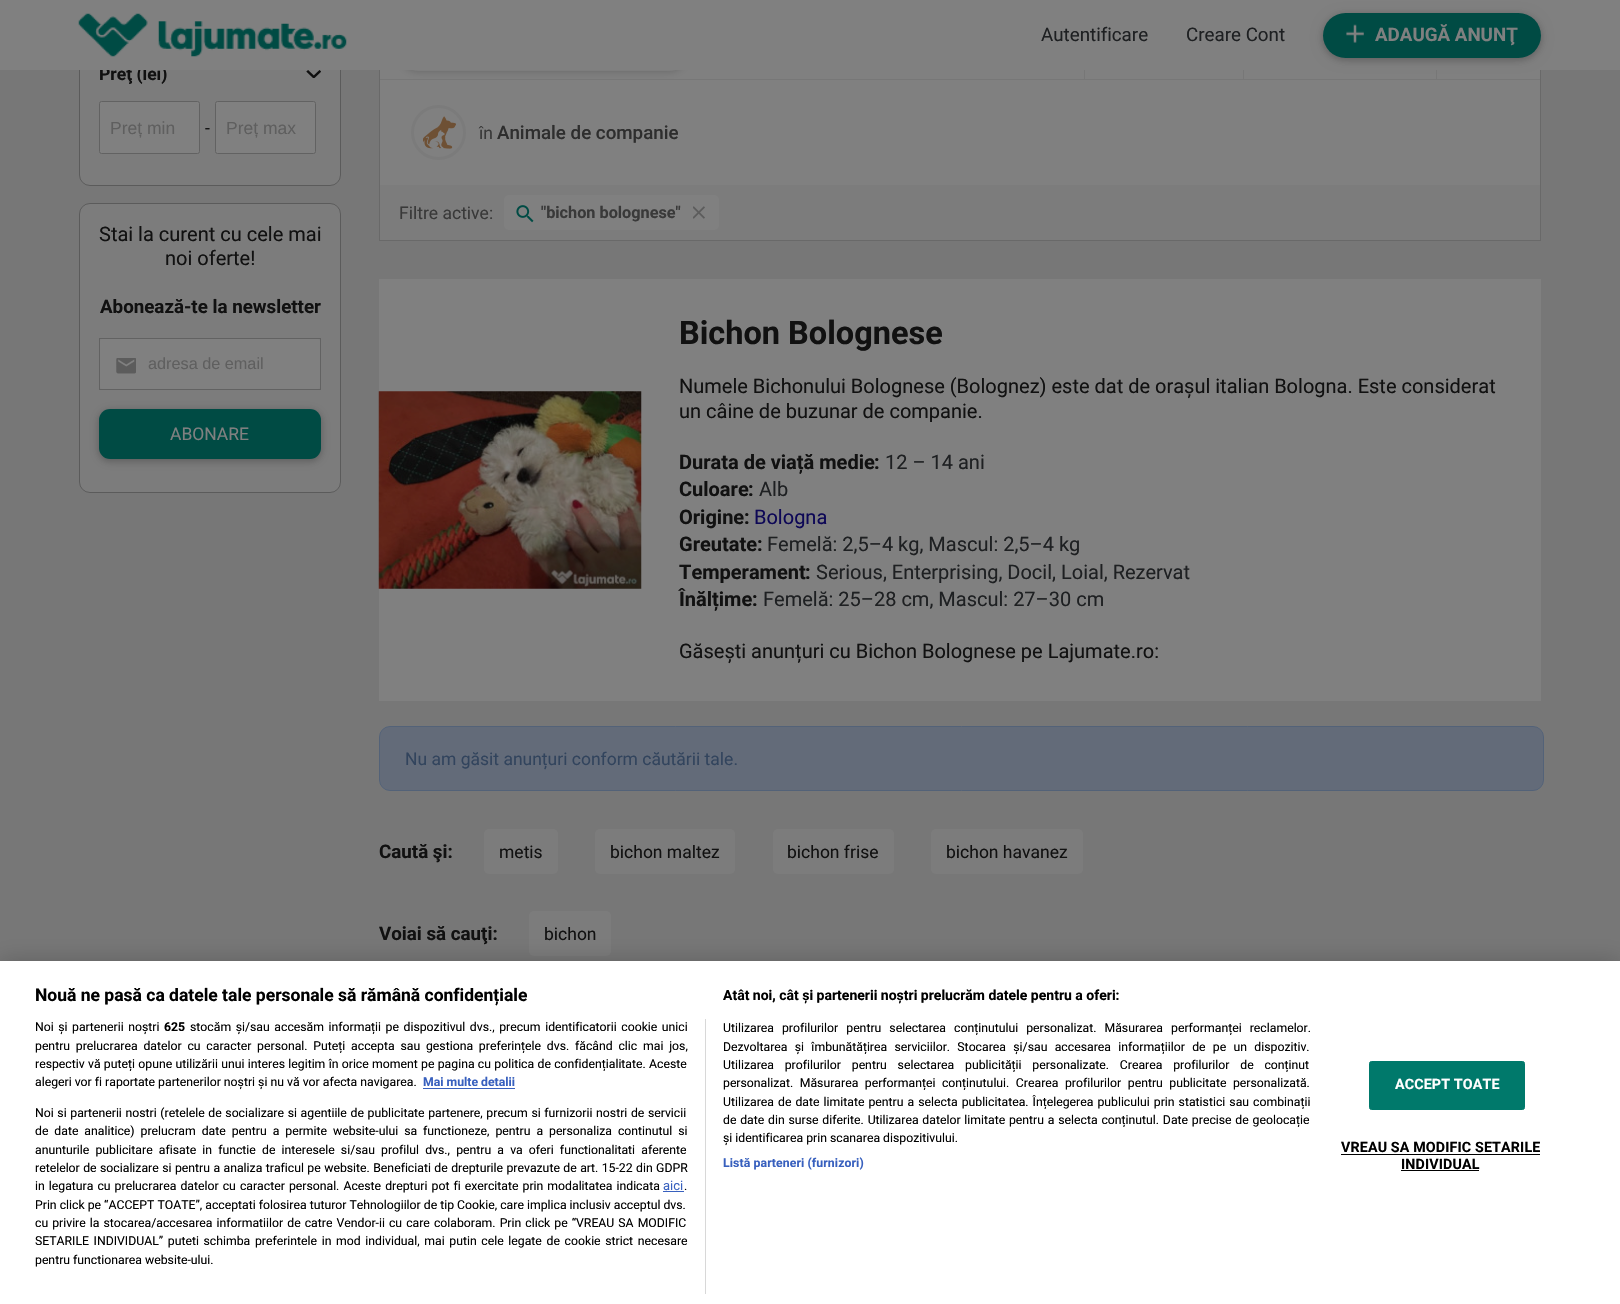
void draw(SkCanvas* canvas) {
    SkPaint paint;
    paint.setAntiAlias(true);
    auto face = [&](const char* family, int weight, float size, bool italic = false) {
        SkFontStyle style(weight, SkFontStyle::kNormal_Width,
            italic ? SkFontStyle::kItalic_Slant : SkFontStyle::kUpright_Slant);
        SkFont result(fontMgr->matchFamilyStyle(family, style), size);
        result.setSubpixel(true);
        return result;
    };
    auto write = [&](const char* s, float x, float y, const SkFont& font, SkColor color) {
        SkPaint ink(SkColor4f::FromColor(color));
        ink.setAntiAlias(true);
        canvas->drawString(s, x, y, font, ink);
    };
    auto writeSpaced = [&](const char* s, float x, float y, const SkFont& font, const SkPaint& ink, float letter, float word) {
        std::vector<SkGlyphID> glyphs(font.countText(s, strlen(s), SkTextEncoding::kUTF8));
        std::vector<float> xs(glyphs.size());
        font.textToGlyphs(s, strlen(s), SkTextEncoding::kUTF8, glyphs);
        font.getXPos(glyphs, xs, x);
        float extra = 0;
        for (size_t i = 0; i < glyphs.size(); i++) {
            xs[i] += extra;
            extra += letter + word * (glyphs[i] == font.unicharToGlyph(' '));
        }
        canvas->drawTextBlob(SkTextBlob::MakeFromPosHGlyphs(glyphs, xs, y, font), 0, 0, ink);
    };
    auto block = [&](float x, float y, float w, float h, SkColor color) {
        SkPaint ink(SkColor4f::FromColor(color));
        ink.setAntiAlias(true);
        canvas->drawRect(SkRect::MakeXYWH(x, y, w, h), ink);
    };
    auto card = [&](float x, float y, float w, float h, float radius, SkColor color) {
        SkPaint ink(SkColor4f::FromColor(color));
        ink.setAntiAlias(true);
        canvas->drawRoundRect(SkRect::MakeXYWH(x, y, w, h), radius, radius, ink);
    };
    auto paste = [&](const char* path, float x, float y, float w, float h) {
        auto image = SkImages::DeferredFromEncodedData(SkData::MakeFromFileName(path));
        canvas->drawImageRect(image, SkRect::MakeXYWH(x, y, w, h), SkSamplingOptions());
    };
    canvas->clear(SkColorSetRGB(119, 119, 119));
    paint.setColor(SkColorSetRGB(124, 124, 124));
    canvas->drawRoundRect(SkRect::MakeXYWH(79.5f, -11.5f, 261, 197), 10.5f, 10.5f, paint);
    paint.setStyle(SkPaint::kStroke_Style);
    paint.setStrokeWidth(1);
    paint.setColor(SkColorSetRGB(91, 91, 91));
    canvas->drawRoundRect(SkRect::MakeXYWH(79.5f, -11.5f, 261, 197), 10.5f, 10.5f, paint);
    auto kFont1 = face("Roboto", 700, 17.5f);
    write("Preţ (lei)", 99, 80, kFont1, SkColorSetRGB(17, 17, 17));
    block(380, 70, 1160, 115, SkColorSetRGB(128, 128, 128));
    paint.setColor(SkColorSetRGB(105, 105, 105));
    canvas->drawRect(SkRect::MakeXYWH(379.5f, -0.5f, 1161, 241), paint);
    block(380, 79, 1160, 1, SkColorSetRGB(119, 119, 119));
    paint.setStyle(SkPaint::kFill_Style);
    paint.setColor(SkColorSetRGB(102, 102, 102));
    paint.setMaskFilter(SkMaskFilter::MakeBlur(kNormal_SkBlurStyle, 4));
    canvas->drawRoundRect(SkRect::MakeXYWH(401, 36, 285, 35), 17.5f, 17.5f, paint);
    paint.setMaskFilter(nullptr);
    card(399, 31, 290, 40, 20, SkColorSetRGB(125, 125, 125));
    block(0, 0, 1620, 70, SkColorSetRGB(128, 128, 128));
    paste("pic1.png", 78, 13, 269, 44);
    auto kFont2 = face("Roboto", 400, 18.75f);
    write("Autentificare", 1041, 41, kFont2, SkColorSetRGB(30, 32, 34));
    write("Creare Cont", 1186, 41, kFont2, SkColorSetRGB(30, 32, 34));
    block(1436, 70, 1, 9, SkColorSetRGB(119, 119, 119));
    paint.setColor(SkColorSetARGB(31, 0, 0, 0));
    paint.setMaskFilter(SkMaskFilter::MakeBlur(kNormal_SkBlurStyle, 6));
    canvas->drawRoundRect(SkRect::MakeXYWH(1323, 15, 218, 45), 22.5f, 22.5f, paint);
    paint.setMaskFilter(nullptr);
    paint.setColor(SkColorSetARGB(41, 0, 0, 0));
    paint.setMaskFilter(SkMaskFilter::MakeBlur(kNormal_SkBlurStyle, 3));
    canvas->drawRoundRect(SkRect::MakeXYWH(1323, 15, 218, 45), 22.5f, 22.5f, paint);
    paint.setMaskFilter(nullptr);
    card(1323, 13, 218, 45, 22.5f, SkColorSetRGB(0, 75, 68));
    paste("pic2.png", 1346, 24, 18, 19);
    auto kFont3 = face("Roboto", 700, 18.75f);
    write("ADAUGĂ ANUNŢ", 1375, 41, kFont3, SkColorSetRGB(128, 128, 128));
    paste("pic3.png", 306, 70, 15, 8);
    paint.setColor(SkColorSetRGB(128, 128, 128));
    canvas->drawRoundRect(SkRect::MakeXYWH(99.5f, 101.5f, 100, 52), 2, 2, paint);
    paint.setStyle(SkPaint::kStroke_Style);
    paint.setColor(SkColorSetRGB(98, 98, 98));
    canvas->drawRoundRect(SkRect::MakeXYWH(99.5f, 101.5f, 100, 52), 2, 2, paint);
    auto kFont4 = face("Liberation Sans", 400, 17.5f);
    write("Preț min", 110, 134, kFont4, SkColorSetRGB(95, 95, 95));
    auto kFont5 = face("Roboto", 400, 17.5f);
    write("-", 205, 134, kFont5, SkColorSetRGB(17, 17, 17));
    paint.setStyle(SkPaint::kFill_Style);
    paint.setColor(SkColorSetRGB(128, 128, 128));
    canvas->drawRoundRect(SkRect::MakeXYWH(215.5f, 101.5f, 100, 52), 2, 2, paint);
    paint.setStyle(SkPaint::kStroke_Style);
    paint.setColor(SkColorSetRGB(98, 98, 98));
    canvas->drawRoundRect(SkRect::MakeXYWH(215.5f, 101.5f, 100, 52), 2, 2, paint);
    write("Preț max", 226, 134, kFont4, SkColorSetRGB(95, 95, 95));
    paint.setStyle(SkPaint::kFill_Style);
    paint.setColor(SkColorSetRGB(124, 124, 124));
    canvas->drawRoundRect(SkRect::MakeXYWH(79.5f, 203.5f, 261, 289), 10.5f, 10.5f, paint);
    paint.setStyle(SkPaint::kStroke_Style);
    paint.setColor(SkColorSetRGB(91, 91, 91));
    canvas->drawRoundRect(SkRect::MakeXYWH(79.5f, 203.5f, 261, 289), 10.5f, 10.5f, paint);
    auto kFont6 = face("Roboto", 400, 20);
    write("Stai la curent cu cele mai", 99, 241, kFont6, SkColorSetRGB(17, 17, 17));
    write("noi oferte!", 165, 265, kFont6, SkColorSetRGB(17, 17, 17));
    write("Abonează-te la newsletter", 100, 313, kFont3, SkColorSetRGB(17, 17, 17));
    paint.setColor(SkColorSetRGB(98, 98, 98));
    canvas->drawRect(SkRect::MakeXYWH(99.5f, 338.5f, 221, 51), paint);
    card(100, 339, 220, 50, 2.5f, SkColorSetRGB(128, 128, 128));
    paste("pic4.png", 116, 358, 20, 16);
    auto kFont7 = face("Liberation Sans", 400, 16.25f);
    write("adresa de email", 148, 369, kFont7, SkColorSetRGB(95, 95, 95));
    paint.setStyle(SkPaint::kFill_Style);
    paint.setColor(SkColorSetARGB(31, 0, 0, 0));
    paint.setMaskFilter(SkMaskFilter::MakeBlur(kNormal_SkBlurStyle, 6));
    canvas->drawRoundRect(SkRect::MakeXYWH(99, 411, 222, 50), 11, 11, paint);
    paint.setMaskFilter(nullptr);
    paint.setColor(SkColorSetARGB(41, 0, 0, 0));
    paint.setMaskFilter(SkMaskFilter::MakeBlur(kNormal_SkBlurStyle, 3));
    canvas->drawRoundRect(SkRect::MakeXYWH(99, 411, 222, 50), 11, 11, paint);
    paint.setMaskFilter(nullptr);
    card(99, 409, 222, 50, 11, SkColorSetRGB(0, 75, 68));
    write("ABONARE", 170, 440, kFont5, SkColorSetRGB(128, 128, 128));
    block(1084, 70, 1, 9, SkColorSetRGB(119, 119, 119));
    block(1243, 70, 1, 9, SkColorSetRGB(119, 119, 119));
    paint.setStyle(SkPaint::kStroke_Style);
    paint.setStrokeWidth(3);
    paint.setColor(SkColorSetRGB(123, 123, 123));
    canvas->drawCircle(438.5f, 132.5f, 26, paint);
    paste("pic5.png", 423, 116, 33, 33);
    write("în", 479, 139, kFont5, SkColorSetRGB(57, 57, 57));
    auto kFont8 = face("Roboto", 500, 18.75f);
    write("Animale de companie", 497, 139, kFont8, SkColorSetRGB(46, 46, 46));
    block(380, 185, 1160, 55, SkColorSetRGB(124, 124, 124));
    write("Filtre active:", 399, 219, kFont5, SkColorSetRGB(57, 57, 57));
    card(504, 195, 215, 35, 5, SkColorSetRGB(128, 128, 128));
    paste("pic6.png", 516, 205, 18, 18);
    auto kFont9 = face("Roboto", 700, 16.25f);
    write("\"bichon bolognese\"", 541, 218, kFont9, SkColorSetRGB(57, 57, 57));
    paste("pic7.png", 693, 206, 12, 13);
    block(379, 279, 1162, 422, SkColorSetRGB(128, 128, 128));
    paste("pic8.png", 378, 391, 264, 198);
    auto kFont10 = face("Roboto", 700, 32.5f);
    write("Bichon Bolognese", 679, 344, kFont10, SkColorSetRGB(17, 17, 17));
    write("Numele Bichonului Bolognese (Bolognez) este dat de orașul italian Bologna. Este considerat", 679, 393, kFont6, SkColorSetRGB(17, 17, 17));
    write("un câine de buzunar de companie.", 679, 418, kFont6, SkColorSetRGB(17, 17, 17));
    auto kFont11 = face("Roboto", 700, 20);
    write("Durata de viață medie", 679, 469, kFont11, SkColorSetRGB(17, 17, 17));
    write(":", 874, 469, kFont11, SkColorSetRGB(17, 17, 17));
    write("12 – 14 ani", 885, 469, kFont6, SkColorSetRGB(30, 32, 34));
    write("Culoare", 679, 496, kFont11, SkColorSetRGB(17, 17, 17));
    write(":", 748, 496, kFont11, SkColorSetRGB(17, 17, 17));
    write("Alb", 759, 496, kFont6, SkColorSetRGB(30, 32, 34));
    write("Origine", 679, 524, kFont11, SkColorSetRGB(17, 17, 17));
    write(":", 744, 524, kFont11, SkColorSetRGB(17, 17, 17));
    write("Bologna", 754, 524, kFont6, SkColorSetRGB(13, 7, 86));
    write("Greutate", 679, 551, kFont11, SkColorSetRGB(17, 17, 17));
    write(":", 757, 551, kFont11, SkColorSetRGB(17, 17, 17));
    write("Femelă: 2,5–4 kg, Mascul: 2,5–4 kg", 767, 551, kFont6, SkColorSetRGB(30, 32, 34));
    write("Temperament", 679, 579, kFont11, SkColorSetRGB(17, 17, 17));
    write(":", 805, 579, kFont11, SkColorSetRGB(17, 17, 17));
    write("Serious, Enterprising, Docil, Loial, Rezervat", 816, 579, kFont6, SkColorSetRGB(30, 32, 34));
    write("Înălțime", 679, 606, kFont11, SkColorSetRGB(17, 17, 17));
    write(":", 752, 606, kFont11, SkColorSetRGB(17, 17, 17));
    write("Femelă: 25–28 cm, Mascul: 27–30 cm", 763, 606, kFont6, SkColorSetRGB(30, 32, 34));
    write("Găsești anunțuri cu Bichon Bolognese pe Lajumate.ro:", 679, 658, kFont6, SkColorSetRGB(17, 17, 17));
    paint.setStyle(SkPaint::kFill_Style);
    paint.setColor(SkColorSetRGB(99, 107, 121));
    canvas->drawRoundRect(SkRect::MakeXYWH(379.5f, 726.5f, 1164, 64), 10.5f, 10.5f, paint);
    paint.setStyle(SkPaint::kStroke_Style);
    paint.setStrokeWidth(1);
    paint.setColor(SkColorSetRGB(83, 98, 120));
    canvas->drawRoundRect(SkRect::MakeXYWH(379.5f, 726.5f, 1164, 64), 10.5f, 10.5f, paint);
    write("Nu am găsit anunțuri conform căutării tale.", 405, 765, kFont5, SkColorSetRGB(50, 68, 93));
    write("Caută şi:", 379, 858, kFont3, SkColorSetRGB(17, 17, 17));
    card(484, 829, 74, 45, 5, SkColorSetRGB(124, 124, 124));
    write("metis", 499, 858, kFont5, SkColorSetRGB(17, 17, 17));
    card(595, 829, 140, 45, 5, SkColorSetRGB(124, 124, 124));
    write("bichon maltez", 610, 858, kFont5, SkColorSetRGB(17, 17, 17));
    card(773, 829, 121, 45, 5, SkColorSetRGB(124, 124, 124));
    write("bichon frise", 787, 858, kFont5, SkColorSetRGB(17, 17, 17));
    card(931, 829, 152, 45, 5, SkColorSetRGB(124, 124, 124));
    write("bichon havanez", 946, 858, kFont5, SkColorSetRGB(17, 17, 17));
    write("Voiai să cauţi:", 379, 940, kFont3, SkColorSetRGB(17, 17, 17));
    card(529, 911, 82, 45, 5, SkColorSetRGB(124, 124, 124));
    write("bichon", 544, 940, kFont5, SkColorSetRGB(17, 17, 17));
    paint.setStyle(SkPaint::kFill_Style);
    paint.setColor(SkColorSetARGB(51, 0, 0, 0));
    paint.setMaskFilter(SkMaskFilter::MakeBlur(kNormal_SkBlurStyle, 11));
    canvas->drawRect(SkRect::MakeXYWH(0, 961, 1620, 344), paint);
    paint.setMaskFilter(nullptr);
    block(0, 961, 1620, 343, SK_ColorWHITE);
    write("Nouă ne pasă ca datele tale personale să rămână confidențiale", 35, 1001, kFont1, SK_ColorBLACK);
    auto kFont12 = face("Roboto", 700, 14);
    write("Atât noi, cât și partenerii noștri prelucrăm datele pentru a oferi:", 723, 1000, kFont12, SK_ColorBLACK);
    auto kFont13 = face("Roboto", 400, 12.25f);
    paint.setColor(SK_ColorBLACK);
    writeSpaced("Utilizarea profilurilor pentru selectarea conținutului personalizat. Măsurarea performanței reclamelor.", 723, 1032, kFont13, paint, 0, 5);
    writeSpaced("Dezvoltarea și îmbunătățirea serviciilor. Stocarea și/sau accesarea informațiilor de pe un dispozitiv.", 723, 1051, kFont13, paint, 0, 4.25f);
    writeSpaced("Utilizarea profilurilor pentru selectarea publicității personalizate. Crearea profilurilor de conținut", 723, 1069, kFont13, paint, 0, 7.75f);
    writeSpaced("personalizat. Măsurarea performanței conținutului. Crearea profilurilor pentru publicitate personalizată.", 723, 1087, kFont13, paint, 0, 3.5f);
    writeSpaced("Utilizarea de date limitate pentru a selecta publicitatea. Înțelegerea publicului prin statistici sau combinații", 723, 1106, kFont13, paint, 0, 1);
    writeSpaced("de date din surse diferite. Utilizarea datelor limitate pentru a selecta conținutul. Date precise de geolocație", 723, 1124, kFont13, paint, 0, 0.75f);
    write("și identificarea prin scanarea dispozitivului.", 723, 1142, kFont13, SK_ColorBLACK);
    auto kFont14 = face("Roboto", 700, 12.25f);
    paint.setColor(SkColorSetRGB(56, 96, 190));
    writeSpaced("Listă parteneri (furnizori)", 723, 1167, kFont14, paint, 0.1f, 0);
    block(705, 1019, 1, 275, SkColorSetRGB(216, 216, 216));
    paint.setColor(SK_ColorBLACK);
    writeSpaced("Noi și partenerii noștri", 35, 1031, kFont13, paint, 0, 1.5f);
    write("625", 164, 1031, kFont14, SK_ColorBLACK);
    writeSpaced("stocăm și/sau accesăm informații pe dispozitivul dvs., precum identificatorii cookie unici", 190, 1031, kFont13, paint, 0, 1.5f);
    writeSpaced("pentru prelucrarea datelor cu caracter personal. Puteți accepta sau gestiona preferințele dvs. făcând clic mai jos,", 35, 1050, kFont13, paint, 0, 2.75f);
    writeSpaced("respectiv vă puteți opune utilizării unui interes legitim în orice moment pe pagina cu politica de confidențialitate. Aceste", 35, 1068, kFont13, paint, 0, 0.25f);
    write("alegeri vor fi raportate partenerilor noștri și nu vă vor afecta navigarea.", 35, 1086, kFont13, SK_ColorBLACK);
    write("Mai multe detalii", 423, 1086, kFont14, SkColorSetRGB(56, 96, 190));
    block(423, 1088, 92, 1, SkColorSetRGB(56, 96, 190));
    writeSpaced("Noi si partenerii nostri (retelele de socializare si agentiile de publicitate partenere, precum si furnizorii nostri de servicii", 35, 1117, kFont13, paint, 0, 0.6f);
    writeSpaced("de date analitice) prelucram date pentru a permite website-ului sa functioneze, pentru a personaliza continutul si", 35, 1135, kFont13, paint, 0, 2.9f);
    writeSpaced("anunturile publicitare afisate in functie de interesele si/sau profilul dvs., pentru a va oferi functionalitati aferente", 35, 1154, kFont13, paint, 0, 3.1f);
    writeSpaced("retelelor de socializare si pentru a analiza traficul pe website. Beneficiati de drepturile prevazute de art. 15-22 din GDPR", 35, 1172, kFont13, paint, 0, 0.4f);
    writeSpaced("in legatura cu prelucrarea datelor cu caracter personal. Aceste drepturi pot fi exercitate prin modalitatea indicata", 35, 1190, kFont13, paint, 0, 1);
    auto kFont15 = face("Roboto", 400, 13);
    write("aici", 663, 1190, kFont15, SkColorSetRGB(56, 96, 190));
    block(663, 1191, 21, 1, SkColorSetRGB(56, 96, 190));
    write(".", 684, 1190, kFont13, SK_ColorBLACK);
    write("Prin click pe “ACCEPT TOATE”, acceptati folosirea tuturor Tehnologiilor de tip Cookie, care implica inclusiv acceptul dvs.", 35, 1209, kFont13, SK_ColorBLACK);
    writeSpaced("cu privire la stocarea/accesarea informatiilor de catre Vendor-ii cu care colaboram. Prin click pe “VREAU SA MODIFIC", 35, 1227, kFont13, paint, 0, 1);
    writeSpaced("SETARILE INDIVIDUAL” puteti schimba preferintele in mod individual, mai putin cele legate de cookie strict necesare", 35, 1245, kFont13, paint, 0, 1.6f);
    write("pentru functionarea website-ului.", 35, 1264, kFont13, SK_ColorBLACK);
    paint.setColor(SkColorSetRGB(0, 121, 107));
    canvas->drawRoundRect(SkRect::MakeXYWH(1369.5f, 1061.5f, 155, 48), 2, 2, paint);
    paint.setStyle(SkPaint::kStroke_Style);
    canvas->drawRoundRect(SkRect::MakeXYWH(1369.5f, 1061.5f, 155, 48), 2, 2, paint);
    auto kFont16 = face("Roboto", 700, 14.25f);
    paint.setStyle(SkPaint::kFill_Style);
    paint.setColor(SK_ColorWHITE);
    writeSpaced("ACCEPT TOATE", 1395, 1089, kFont16, paint, 0.15f, 0);
    paint.setColor(SK_ColorBLACK);
    writeSpaced("VREAU SA MODIFIC SETARILE", 1341, 1152, kFont16, paint, 0.15f, 0);
    block(1341, 1154, 199, 1, SK_ColorBLACK);
    writeSpaced("INDIVIDUAL", 1401, 1169, kFont16, paint, 0.15f, 0);
    block(1401, 1170, 78, 1, SK_ColorBLACK);
}
